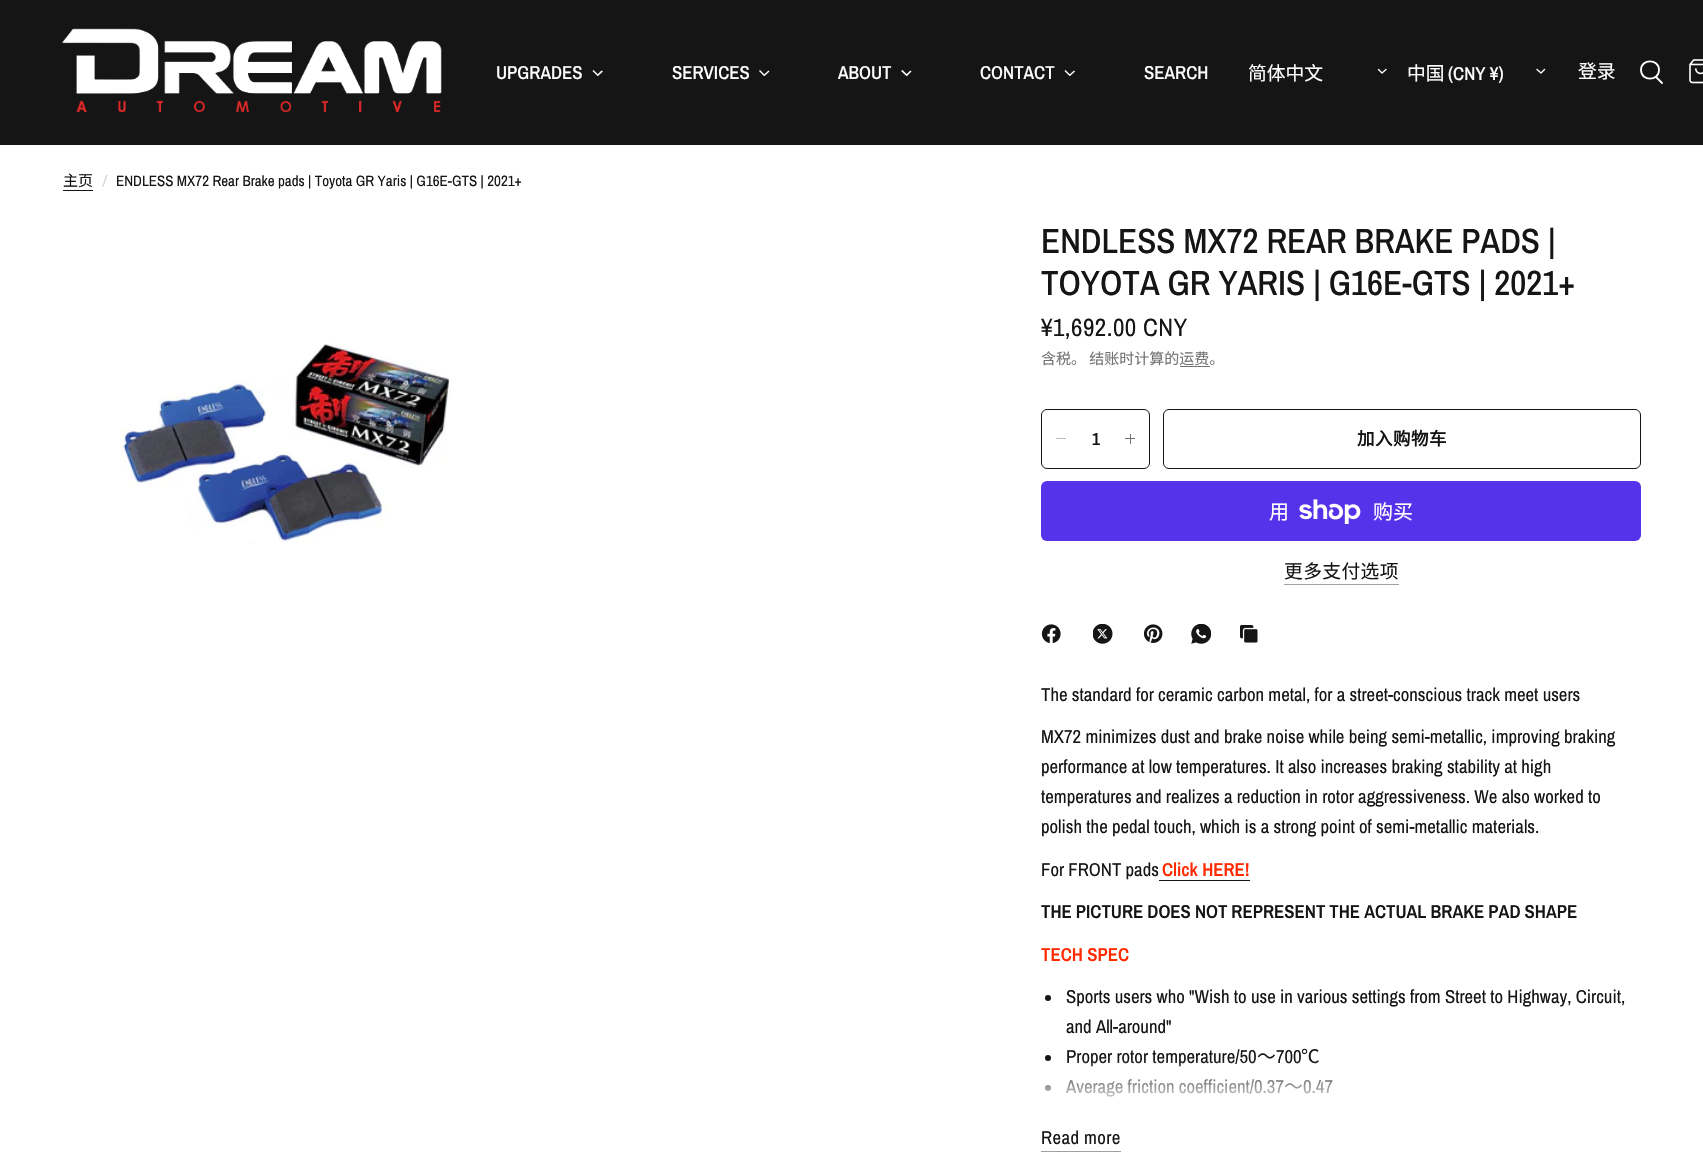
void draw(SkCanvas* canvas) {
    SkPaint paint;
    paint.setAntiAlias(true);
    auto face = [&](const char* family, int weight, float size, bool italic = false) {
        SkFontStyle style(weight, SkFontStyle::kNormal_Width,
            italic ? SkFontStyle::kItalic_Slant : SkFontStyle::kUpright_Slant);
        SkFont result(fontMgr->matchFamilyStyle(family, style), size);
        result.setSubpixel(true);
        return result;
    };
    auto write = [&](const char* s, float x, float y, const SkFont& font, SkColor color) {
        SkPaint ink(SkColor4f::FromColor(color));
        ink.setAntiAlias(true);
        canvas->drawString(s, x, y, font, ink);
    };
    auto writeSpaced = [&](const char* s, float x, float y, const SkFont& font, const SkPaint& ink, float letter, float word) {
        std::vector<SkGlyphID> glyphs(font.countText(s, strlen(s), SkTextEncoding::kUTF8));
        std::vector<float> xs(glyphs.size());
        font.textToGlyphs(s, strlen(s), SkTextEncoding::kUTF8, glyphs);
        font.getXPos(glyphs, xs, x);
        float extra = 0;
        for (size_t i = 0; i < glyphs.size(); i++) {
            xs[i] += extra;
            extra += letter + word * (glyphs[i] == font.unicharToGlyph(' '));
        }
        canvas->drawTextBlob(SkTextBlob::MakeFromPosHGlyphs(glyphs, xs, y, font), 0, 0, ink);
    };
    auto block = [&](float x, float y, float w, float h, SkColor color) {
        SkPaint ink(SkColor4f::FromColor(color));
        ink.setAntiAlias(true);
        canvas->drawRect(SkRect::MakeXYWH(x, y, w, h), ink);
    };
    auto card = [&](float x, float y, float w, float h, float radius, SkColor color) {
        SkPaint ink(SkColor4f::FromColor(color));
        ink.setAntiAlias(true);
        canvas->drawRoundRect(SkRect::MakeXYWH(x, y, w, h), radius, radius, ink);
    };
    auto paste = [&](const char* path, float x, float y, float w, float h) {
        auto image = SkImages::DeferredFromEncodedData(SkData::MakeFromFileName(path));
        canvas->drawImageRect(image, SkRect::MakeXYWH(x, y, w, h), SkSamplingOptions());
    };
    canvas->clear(SK_ColorWHITE);
    block(0, 0, 1703, 145, SkColorSetRGB(21, 21, 21));
    paste("pic1.png", 62, 28, 380, 85);
    auto kFont1 = face("Archivo Narrow", 500, 18.75f);
    write("UPGRADES", 496, 79, kFont1, SK_ColorWHITE);
    paint.setColor(SK_ColorWHITE);
    canvas->drawPath(SkPathBuilder().moveTo(601.5f, 70.5f).lineTo(603, 71.5f).lineTo(598, 76).lineTo(597, 75).close().detach(), paint);
    canvas->drawPath(SkPathBuilder().moveTo(593.5f, 70).lineTo(598.5f, 75).lineTo(597.5f, 76).lineTo(592.5f, 71).close().detach(), paint);
    write("SERVICES", 672, 79, kFont1, SK_ColorWHITE);
    canvas->drawPath(SkPathBuilder().moveTo(768.5f, 70.5f).lineTo(769.5f, 71.5f).lineTo(764.5f, 76).lineTo(763.5f, 75).close().detach(), paint);
    canvas->drawPath(SkPathBuilder().moveTo(760, 70).lineTo(765, 75).lineTo(764, 76).lineTo(759, 71).close().detach(), paint);
    write("ABOUT", 838, 79, kFont1, SK_ColorWHITE);
    canvas->drawPath(SkPathBuilder().moveTo(910.5f, 70.5f).lineTo(911.5f, 71.5f).lineTo(907, 76).lineTo(905.5f, 75).close().detach(), paint);
    canvas->drawPath(SkPathBuilder().moveTo(902.5f, 70).lineTo(907.5f, 75).lineTo(906.5f, 76).lineTo(901, 71).close().detach(), paint);
    write("CONTACT", 980, 79, kFont1, SK_ColorWHITE);
    canvas->drawPath(SkPathBuilder().moveTo(1074, 70.5f).lineTo(1075, 71.5f).lineTo(1070, 76).lineTo(1069, 75).close().detach(), paint);
    canvas->drawPath(SkPathBuilder().moveTo(1065.5f, 70).lineTo(1070.5f, 75).lineTo(1069.5f, 76).lineTo(1064.5f, 71).close().detach(), paint);
    write("SEARCH", 1144, 79, kFont1, SK_ColorWHITE);
    auto kFont2 = face("Noto Sans CJK SC", 400, 18.75f);
    write("简体中文", 1248, 80, kFont2, SK_ColorWHITE);
    paint.setStyle(SkPaint::kStroke_Style);
    paint.setStrokeWidth(1.4f);
    paint.setStrokeCap(SkPaint::kRound_Cap);
    paint.setStrokeJoin(SkPaint::kRound_Join);
    canvas->drawPath(SkPathBuilder().moveTo(1386, 69.5f).lineTo(1382, 73).lineTo(1378.5f, 69.5f).detach(), paint);
    write("中国", 1407, 80, kFont2, SK_ColorWHITE);
    write("(CNY ¥)", 1448, 80, kFont1, SK_ColorWHITE);
    canvas->drawPath(SkPathBuilder().moveTo(1544.5f, 69.5f).lineTo(1541, 73).lineTo(1537, 69.5f).detach(), paint);
    write("登录", 1578, 78, kFont2, SK_ColorWHITE);
    paint.setStrokeWidth(1.8f);
    canvas->drawPath(SkPathBuilder().moveTo(1656, 77).lineTo(1662, 83).moveTo(1659, 70).cubicTo(1659, 81.5f, 1641, 81.5f, 1641, 70).cubicTo(1641, 58.5f, 1659, 58.5f, 1659, 70).close().detach(), paint);
    paste("pic2.png", 1689, 59, 14, 25);
    auto kFont3 = face("Noto Sans CJK SC", 400, 15);
    write("主页", 63, 186, kFont3, SkColorSetRGB(21, 21, 21));
    block(63, 190, 30, 1, SkColorSetRGB(21, 21, 21));
    auto kFont4 = face("Archivo Narrow", 400, 15, true);
    write("/", 103, 186, kFont4, SkColorSetRGB(208, 208, 208));
    auto kFont5 = face("Archivo Narrow", 400, 15);
    write("ENDLESS MX72 Rear Brake pads | Toyota GR Yaris | G16E-GTS | 2021+", 116, 186, kFont5, SkColorSetRGB(21, 21, 21));
    paste("pic3.png", 120, 343, 330, 201);
    auto kFont6 = face("Archivo Narrow", 500, 35);
    write("ENDLESS MX72 REAR BRAKE PADS |", 1041, 253, kFont6, SkColorSetRGB(21, 21, 21));
    write("TOYOTA GR YARIS | G16E-GTS | 2021+", 1041, 295, kFont6, SkColorSetRGB(21, 21, 21));
    auto kFont7 = face("Archivo Narrow", 400, 25);
    paint.setStyle(SkPaint::kFill_Style);
    paint.setColor(SkColorSetRGB(21, 21, 21));
    writeSpaced("¥1,692.00 CNY", 1041, 336, kFont7, paint, 0.5f, 0);
    write("含税。 结账时计算的运费。", 1041, 364, kFont3, SkColorSetRGB(115, 115, 115));
    block(1180, 366, 30, 1, SkColorSetRGB(115, 115, 115));
    paint.setStyle(SkPaint::kStroke_Style);
    paint.setStrokeWidth(1);
    paint.setStrokeCap(SkPaint::kButt_Cap);
    paint.setStrokeJoin(SkPaint::kMiter_Join);
    canvas->drawRoundRect(SkRect::MakeXYWH(1041.5f, 409.5f, 108, 59), 5.5f, 5.5f, paint);
    paint.setStyle(SkPaint::kFill_Style);
    paint.setColor(SkColorSetRGB(185, 185, 185));
    canvas->drawPath(SkPathBuilder().moveTo(1056.5f, 439).lineTo(1056, 438).lineTo(1066, 438).lineTo(1066, 439).close().detach(), paint);
    auto kFont8 = face("Archivo Narrow", 600, 17.5f);
    write("1", 1092, 445, kFont8, SkColorSetRGB(21, 21, 21));
    block(1130, 434, 1, 10, SkColorSetRGB(115, 115, 115));
    block(1125, 438, 10, 1, SkColorSetRGB(115, 115, 115));
    paint.setStyle(SkPaint::kStroke_Style);
    paint.setColor(SkColorSetRGB(21, 21, 21));
    canvas->drawRoundRect(SkRect::MakeXYWH(1163.5f, 409.5f, 477, 59), 5.5f, 5.5f, paint);
    auto kFont9 = face("Noto Sans CJK SC", 700, 17.5f);
    paint.setStyle(SkPaint::kFill_Style);
    writeSpaced("加入购物车", 1357, 445, kFont9, paint, 0.5f, 0);
    card(1041, 481, 600, 60, 6, SkColorSetRGB(84, 51, 235));
    auto kFont10 = face("Noto Sans CJK SC", 400, 20);
    write("用", 1269, 519, kFont10, SK_ColorWHITE);
    paste("pic4.png", 1299, 499, 62, 25);
    write("购买", 1373, 519, kFont10, SK_ColorWHITE);
    writeSpaced("更多支付选项", 1284, 578, kFont2, paint, 0.4f, 0);
    block(1284, 584, 115, 1, SkColorSetRGB(161, 161, 161));
    paste("pic5.png", 1041, 624, 20, 20);
    paste("pic6.png", 1093, 624, 20, 20);
    paste("pic7.png", 1144, 624, 19, 19);
    paste("pic8.png", 1191, 624, 20, 20);
    paste("pic9.png", 1240, 625, 18, 18);
    auto kFont11 = face("Archivo Narrow", 400, 18.75f);
    write("The standard for ceramic carbon metal, for a street-conscious track meet users", 1041, 701, kFont11, SkColorSetRGB(21, 21, 21));
    write("MX72 minimizes dust and brake noise while being semi-metallic, improving braking", 1041, 743, kFont11, SkColorSetRGB(21, 21, 21));
    write("performance at low temperatures. It also increases braking stability at high", 1041, 773, kFont11, SkColorSetRGB(21, 21, 21));
    write("temperatures and realizes a reduction in rotor aggressiveness. We also worked to", 1041, 803, kFont11, SkColorSetRGB(21, 21, 21));
    write("polish the pedal touch, which is a strong point of semi-metallic materials.", 1041, 833, kFont11, SkColorSetRGB(21, 21, 21));
    write("For FRONT pads", 1041, 876, kFont11, SkColorSetRGB(21, 21, 21));
    auto kFont12 = face("Archivo Narrow", 600, 18.75f);
    write("Click HERE!", 1162, 876, kFont12, SkColorSetRGB(255, 42, 0));
    block(1159, 880, 91, 1, SkColorSetRGB(21, 21, 21));
    writeSpaced("THE PICTURE DOES NOT REPRESENT THE ACTUAL BRAKE PAD SHAPE", 1041, 918, kFont12, paint, 0, -0.25f);
    write("TECH SPEC", 1041, 961, kFont12, SkColorSetRGB(255, 42, 0));
    canvas->drawCircle(1048, 998, 3, paint);
    write("Sports users who \"Wish to use in various settings from Street to Highway, Circuit,", 1066, 1003, kFont11, SkColorSetRGB(21, 21, 21));
    write("and All-around\"", 1066, 1033, kFont11, SkColorSetRGB(21, 21, 21));
    canvas->drawCircle(1048, 1058, 3, paint);
    write("Proper rotor temperature/50", 1066, 1063, kFont11, SkColorSetRGB(21, 21, 21));
    write("～", 1257, 1063, kFont2, SkColorSetRGB(21, 21, 21));
    write("700", 1276, 1063, kFont11, SkColorSetRGB(21, 21, 21));
    write("℃", 1301, 1063, kFont2, SkColorSetRGB(21, 21, 21));
    canvas->drawCircle(1048, 1088, 3, paint);
    write("Average friction coefficient/0.37", 1066, 1093, kFont11, SkColorSetRGB(21, 21, 21));
    write("～", 1284, 1093, kFont2, SkColorSetRGB(21, 21, 21));
    write("0.47", 1303, 1093, kFont11, SkColorSetRGB(21, 21, 21));
    {
        const SkColor colors[] = {SkColorSetARGB(0, 255, 255, 255), SK_ColorWHITE};
        const float stops[] = {0.1f, 0.9f};
        const SkPoint ends[] = {{1341, 1053}, {1341, 1115}};
        paint.setShader(SkGradientShader::MakeLinear(ends, colors, stops, 2, SkTileMode::kClamp));
        paint.setAlpha(255);
    }
    canvas->drawRect(SkRect::MakeXYWH(1045, 1060, 288, 37), paint);
    paint.setShader(nullptr);
    paint.setColor(SkColorSetRGB(21, 21, 21));
    writeSpaced("Read more", 1041, 1144, kFont11, paint, 0.4f, 0);
    block(1041, 1151, 80, 1, SkColorSetRGB(161, 161, 161));
}
